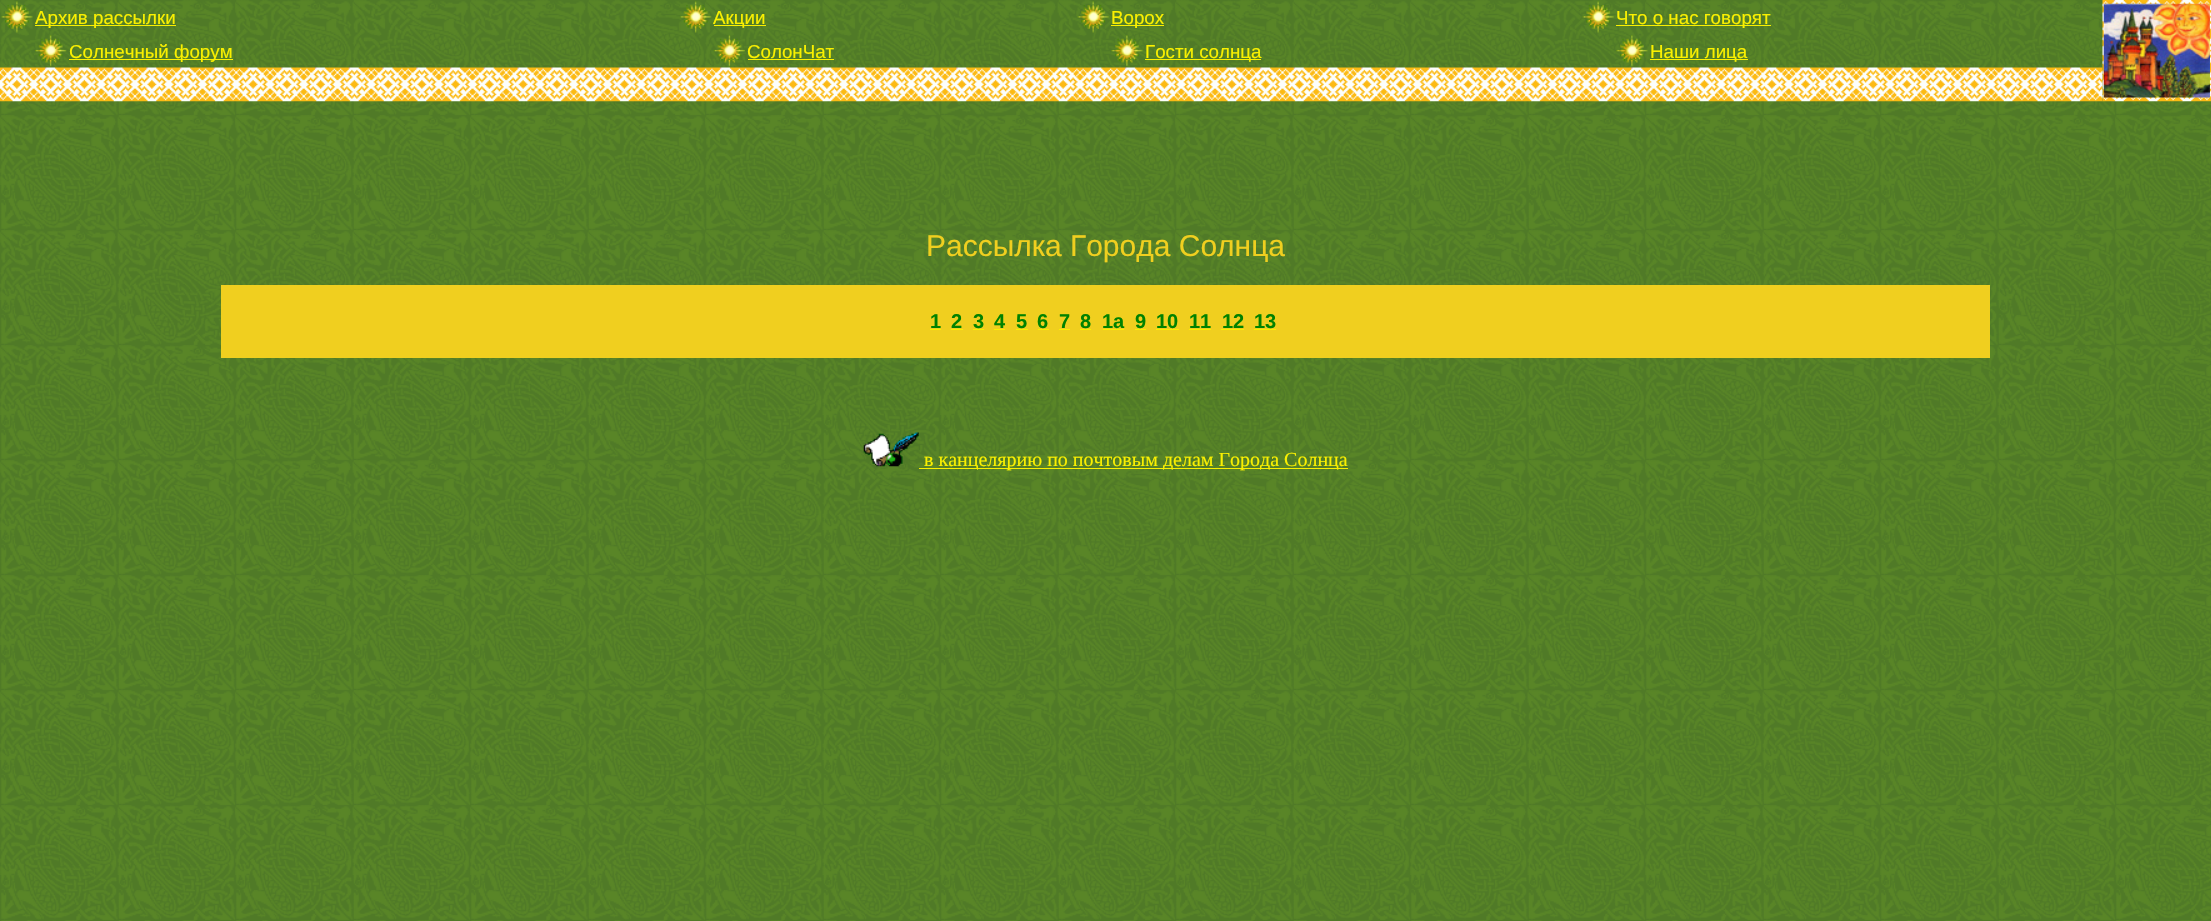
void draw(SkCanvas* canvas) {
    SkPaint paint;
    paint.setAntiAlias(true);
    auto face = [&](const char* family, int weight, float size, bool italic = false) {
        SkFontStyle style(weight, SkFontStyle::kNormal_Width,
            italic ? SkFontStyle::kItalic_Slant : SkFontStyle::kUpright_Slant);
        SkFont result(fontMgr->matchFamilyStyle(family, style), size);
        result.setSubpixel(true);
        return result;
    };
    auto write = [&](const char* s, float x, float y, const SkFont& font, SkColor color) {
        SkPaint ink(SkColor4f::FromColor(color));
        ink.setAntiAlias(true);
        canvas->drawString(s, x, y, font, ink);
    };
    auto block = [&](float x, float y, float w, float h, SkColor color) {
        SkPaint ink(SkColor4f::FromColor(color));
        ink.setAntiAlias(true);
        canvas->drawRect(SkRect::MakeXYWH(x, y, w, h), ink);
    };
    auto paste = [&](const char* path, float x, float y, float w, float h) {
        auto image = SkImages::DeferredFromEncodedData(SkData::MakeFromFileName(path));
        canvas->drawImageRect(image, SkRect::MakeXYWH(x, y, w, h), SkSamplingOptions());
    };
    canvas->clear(SK_ColorWHITE);
    paste("pic1.png", 0, 0, 2211, 921);
    paste("pic2.png", 1, 1, 32, 32);
    block(35, 25, 141, 1, SkColorSetRGB(250, 240, 0));
    auto kFont1 = face("Liberation Sans", 400, 18.75f);
    write("Архив рассылки", 35, 24, kFont1, SkColorSetRGB(250, 240, 0));
    paste("pic3.png", 680, 1, 32, 32);
    block(714, 25, 52, 1, SkColorSetRGB(250, 240, 0));
    write("Акции", 713, 24, kFont1, SkColorSetRGB(250, 240, 0));
    paste("pic4.png", 1077, 1, 32, 32);
    block(1111, 25, 53, 1, SkColorSetRGB(250, 240, 0));
    write("Ворох", 1111, 24, kFont1, SkColorSetRGB(250, 240, 0));
    paste("pic5.png", 1582, 1, 32, 32);
    block(1616, 25, 155, 1, SkColorSetRGB(250, 240, 0));
    write("Что о нас говорят", 1616, 24, kFont1, SkColorSetRGB(250, 240, 0));
    paste("pic6.png", 2102, 0, 109, 102);
    paste("pic7.png", 2103, 3, 107, 95);
    paste("pic8.png", 35, 35, 32, 32);
    block(69, 59, 164, 1, SkColorSetRGB(250, 240, 0));
    write("Солнечный форум", 69, 58, kFont1, SkColorSetRGB(250, 240, 0));
    paste("pic9.png", 713, 35, 32, 32);
    write("СолонЧат", 747, 58, kFont1, SkColorSetRGB(250, 240, 0));
    block(748, 59, 86, 1, SkColorSetRGB(250, 240, 0));
    paste("pic10.png", 1111, 35, 32, 32);
    block(1145, 59, 116, 1, SkColorSetRGB(250, 240, 0));
    write("Гости солнца", 1145, 58, kFont1, SkColorSetRGB(250, 240, 0));
    paste("pic11.png", 1616, 35, 32, 32);
    block(1650, 59, 98, 1, SkColorSetRGB(250, 240, 0));
    write("Наши лица", 1650, 58, kFont1, SkColorSetRGB(250, 240, 0));
    paste("pic12.png", 0, 67, 2103, 35);
    auto kFont2 = face("Liberation Sans", 400, 30);
    write("Рассылка Города Солнца", 926, 256, kFont2, SkColorSetRGB(240, 207, 31));
    block(221, 285, 1769, 73, SkColorSetRGB(240, 207, 31));
    auto kFont3 = face("Liberation Sans", 700, 20);
    write("1", 930, 328, kFont3, SkColorSetRGB(0, 130, 0));
    block(930, 329, 11, 1, SkColorSetRGB(250, 240, 0));
    write("2", 951, 328, kFont3, SkColorSetRGB(0, 130, 0));
    block(951, 329, 12, 1, SkColorSetRGB(250, 240, 0));
    write("3", 973, 328, kFont3, SkColorSetRGB(0, 130, 0));
    block(973, 329, 11, 1, SkColorSetRGB(250, 240, 0));
    write("4", 994, 328, kFont3, SkColorSetRGB(0, 130, 0));
    block(994, 329, 11, 1, SkColorSetRGB(250, 240, 0));
    write("5", 1016, 328, kFont3, SkColorSetRGB(0, 130, 0));
    block(1016, 329, 12, 1, SkColorSetRGB(250, 240, 0));
    write("6", 1037, 328, kFont3, SkColorSetRGB(0, 130, 0));
    block(1038, 329, 11, 1, SkColorSetRGB(250, 240, 0));
    write("7", 1059, 328, kFont3, SkColorSetRGB(0, 130, 0));
    block(1059, 329, 11, 1, SkColorSetRGB(250, 240, 0));
    write("8", 1080, 328, kFont3, SkColorSetRGB(0, 130, 0));
    block(1080, 329, 11, 1, SkColorSetRGB(250, 240, 0));
    write("1a", 1102, 328, kFont3, SkColorSetRGB(0, 130, 0));
    block(1103, 329, 21, 1, SkColorSetRGB(250, 240, 0));
    write("9", 1135, 328, kFont3, SkColorSetRGB(0, 130, 0));
    block(1135, 329, 11, 1, SkColorSetRGB(250, 240, 0));
    write("10", 1156, 328, kFont3, SkColorSetRGB(0, 130, 0));
    block(1156, 329, 23, 1, SkColorSetRGB(250, 240, 0));
    write("11", 1189, 328, kFont3, SkColorSetRGB(0, 130, 0));
    block(1189, 329, 22, 1, SkColorSetRGB(250, 240, 0));
    write("12", 1222, 328, kFont3, SkColorSetRGB(0, 130, 0));
    block(1221, 329, 23, 1, SkColorSetRGB(250, 240, 0));
    write("13", 1254, 328, kFont3, SkColorSetRGB(0, 130, 0));
    block(1254, 329, 22, 1, SkColorSetRGB(250, 240, 0));
    paste("pic13.png", 863, 432, 56, 35);
    block(919, 468, 429, 1, SkColorSetRGB(250, 240, 0));
    auto kFont4 = face("Liberation Serif", 400, 20);
    write("в канцелярию по почтовым делам Города Солнца", 924, 466, kFont4, SkColorSetRGB(250, 240, 0));
}
